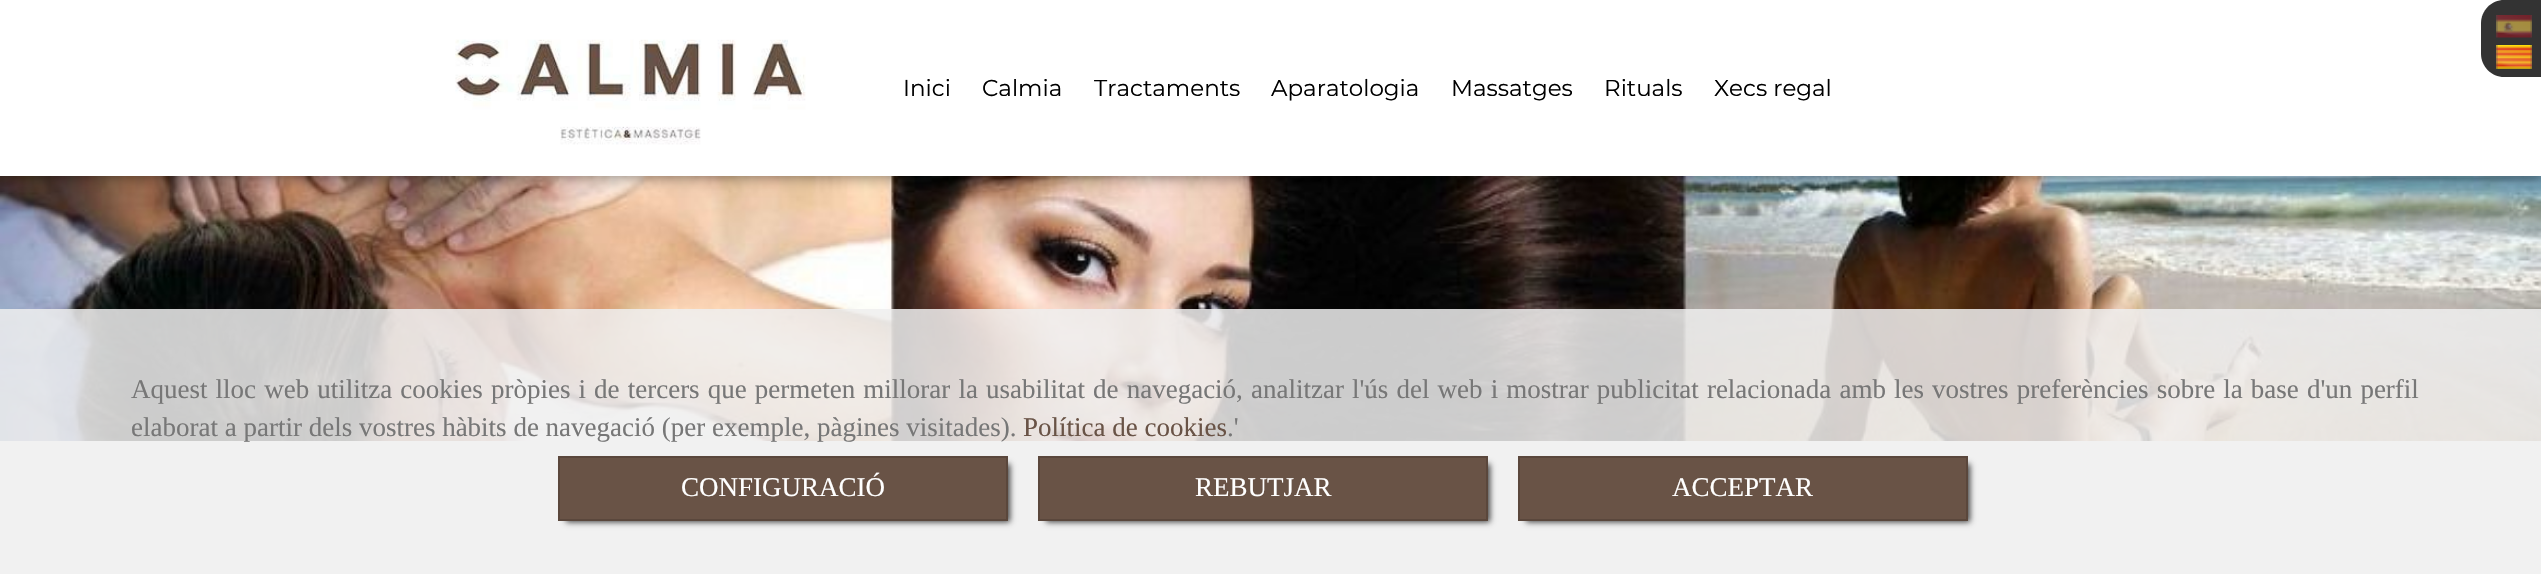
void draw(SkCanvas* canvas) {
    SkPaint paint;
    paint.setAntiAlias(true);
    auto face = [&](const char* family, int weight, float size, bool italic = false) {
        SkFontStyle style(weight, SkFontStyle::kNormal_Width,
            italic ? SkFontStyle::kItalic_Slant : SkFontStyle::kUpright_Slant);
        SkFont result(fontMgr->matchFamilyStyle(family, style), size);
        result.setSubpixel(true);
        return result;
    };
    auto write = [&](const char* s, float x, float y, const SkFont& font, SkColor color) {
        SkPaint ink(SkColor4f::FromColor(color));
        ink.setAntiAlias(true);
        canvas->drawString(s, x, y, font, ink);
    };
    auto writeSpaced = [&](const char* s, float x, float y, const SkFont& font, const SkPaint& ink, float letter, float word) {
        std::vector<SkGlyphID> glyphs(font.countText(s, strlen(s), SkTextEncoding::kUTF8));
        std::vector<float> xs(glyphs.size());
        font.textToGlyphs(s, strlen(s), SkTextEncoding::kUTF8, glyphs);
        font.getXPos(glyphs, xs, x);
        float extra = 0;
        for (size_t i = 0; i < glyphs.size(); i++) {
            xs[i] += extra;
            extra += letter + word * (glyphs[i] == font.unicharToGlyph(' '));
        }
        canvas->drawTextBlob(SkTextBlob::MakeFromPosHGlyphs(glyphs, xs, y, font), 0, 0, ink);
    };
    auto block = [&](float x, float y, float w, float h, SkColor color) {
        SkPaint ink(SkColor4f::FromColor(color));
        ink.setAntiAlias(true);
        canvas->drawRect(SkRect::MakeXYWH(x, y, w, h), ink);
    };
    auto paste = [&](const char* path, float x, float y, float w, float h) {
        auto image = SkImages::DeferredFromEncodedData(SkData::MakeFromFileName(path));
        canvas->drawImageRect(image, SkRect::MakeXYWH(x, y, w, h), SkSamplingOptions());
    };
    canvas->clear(SK_ColorWHITE);
    paste("pic4.png", 0, 176, 2541, 265);
    paint.setColor(SkColorSetARGB(128, 0, 0, 0));
    paint.setMaskFilter(SkMaskFilter::MakeBlur(kNormal_SkBlurStyle, 7.5f));
    canvas->drawRect(SkRect::MakeXYWH(0, 0, 2541, 176), paint);
    paint.setMaskFilter(nullptr);
    block(0, 0, 2541, 176, SK_ColorWHITE);
    paint.setColor(SkColorSetRGB(51, 51, 51));
    canvas->drawPath(SkPathBuilder().moveTo(2504, 0).lineTo(2541, 0).lineTo(2541, 77).lineTo(2504, 77).cubicTo(2491.5f, 77, 2481, 66.5f, 2481, 54).lineTo(2481, 23).cubicTo(2481, 10.5f, 2491.5f, 0, 2504, 0).close().detach(), paint);
    paste("pic1.png", 2496, 15, 36, 23);
    paste("pic2.png", 2496, 45, 36, 24);
    paste("pic3.png", 455, 39, 351, 106);
    auto kFont1 = face("Montserrat", 100, 23);
    write("Inici", 903, 96, kFont1, SK_ColorBLACK);
    write("Calmia", 982, 96, kFont1, SK_ColorBLACK);
    write("Tractaments", 1094, 96, kFont1, SK_ColorBLACK);
    write("Aparatologia", 1271, 96, kFont1, SK_ColorBLACK);
    write("Massatges", 1451, 96, kFont1, SK_ColorBLACK);
    write("Rituals", 1604, 96, kFont1, SK_ColorBLACK);
    write("Xecs regal", 1714, 96, kFont1, SK_ColorBLACK);
    block(0, 309, 2541, 265, SkColorSetARGB(217, 238, 238, 238));
    auto kFont2 = face("Liberation Serif", 400, 27);
    paint.setColor(SkColorSetRGB(119, 119, 119));
    writeSpaced("Aquest lloc web utilitza cookies pròpies i de tercers que permeten millorar la usabilitat de navegació, analitzar l'ús del web i mostrar publicitat relacionada amb les vostres preferències sobre la base d'un perfil", 131, 398, kFont2, paint, 0, 1.35f);
    write("elaborat a partir dels vostres hàbits de navegació (per exemple, pàgines visitades).", 131, 436, kFont2, SkColorSetRGB(119, 119, 119));
    write("Política de cookies", 1023, 436, kFont2, SkColorSetRGB(105, 83, 70));
    write(".'", 1227, 436, kFont2, SkColorSetRGB(119, 119, 119));
    paint.setColor(SkColorSetARGB(191, 0, 0, 0));
    paint.setMaskFilter(SkMaskFilter::MakeBlur(kNormal_SkBlurStyle, 3));
    canvas->drawRect(SkRect::MakeXYWH(566, 464, 444, 58), paint);
    paint.setMaskFilter(nullptr);
    paint.setColor(SkColorSetRGB(105, 83, 70));
    canvas->drawRect(SkRect::MakeXYWH(559, 457, 448, 63), paint);
    paint.setStyle(SkPaint::kStroke_Style);
    paint.setStrokeWidth(2);
    paint.setColor(SkColorSetRGB(90, 71, 60));
    canvas->drawRect(SkRect::MakeXYWH(559, 457, 448, 63), paint);
    write("CONFIGURACIÓ", 681, 496, kFont2, SK_ColorWHITE);
    paint.setStyle(SkPaint::kFill_Style);
    paint.setColor(SkColorSetARGB(191, 0, 0, 0));
    paint.setMaskFilter(SkMaskFilter::MakeBlur(kNormal_SkBlurStyle, 3));
    canvas->drawRect(SkRect::MakeXYWH(1046, 464, 444, 58), paint);
    paint.setMaskFilter(nullptr);
    paint.setColor(SkColorSetRGB(105, 83, 70));
    canvas->drawRect(SkRect::MakeXYWH(1039, 457, 448, 63), paint);
    paint.setStyle(SkPaint::kStroke_Style);
    paint.setColor(SkColorSetRGB(90, 71, 60));
    canvas->drawRect(SkRect::MakeXYWH(1039, 457, 448, 63), paint);
    write("REBUTJAR", 1195, 496, kFont2, SK_ColorWHITE);
    paint.setStyle(SkPaint::kFill_Style);
    paint.setColor(SkColorSetARGB(191, 0, 0, 0));
    paint.setMaskFilter(SkMaskFilter::MakeBlur(kNormal_SkBlurStyle, 3));
    canvas->drawRect(SkRect::MakeXYWH(1526, 464, 444, 58), paint);
    paint.setMaskFilter(nullptr);
    paint.setColor(SkColorSetRGB(105, 83, 70));
    canvas->drawRect(SkRect::MakeXYWH(1519, 457, 448, 63), paint);
    paint.setStyle(SkPaint::kStroke_Style);
    paint.setColor(SkColorSetRGB(90, 71, 60));
    canvas->drawRect(SkRect::MakeXYWH(1519, 457, 448, 63), paint);
    write("ACCEPTAR", 1672, 496, kFont2, SK_ColorWHITE);
}
